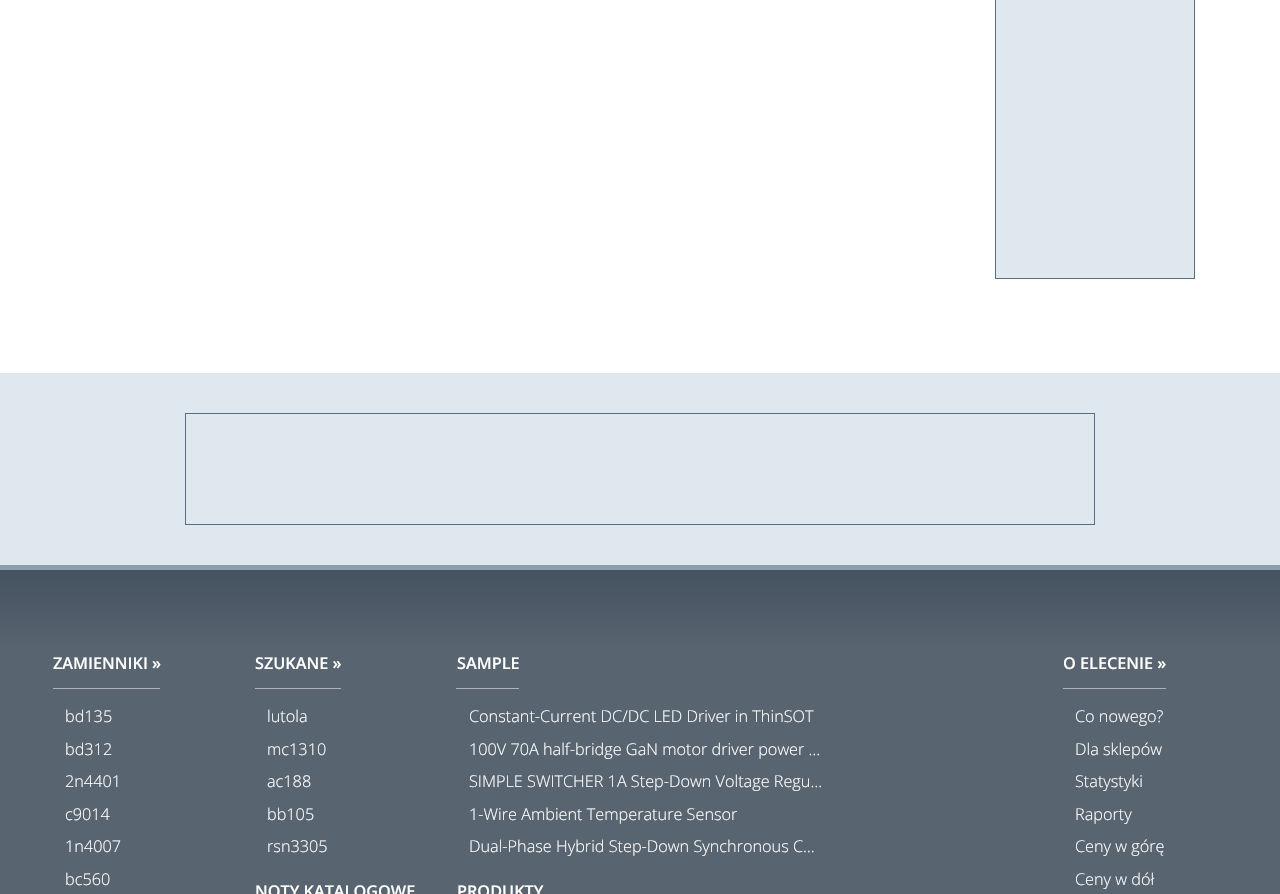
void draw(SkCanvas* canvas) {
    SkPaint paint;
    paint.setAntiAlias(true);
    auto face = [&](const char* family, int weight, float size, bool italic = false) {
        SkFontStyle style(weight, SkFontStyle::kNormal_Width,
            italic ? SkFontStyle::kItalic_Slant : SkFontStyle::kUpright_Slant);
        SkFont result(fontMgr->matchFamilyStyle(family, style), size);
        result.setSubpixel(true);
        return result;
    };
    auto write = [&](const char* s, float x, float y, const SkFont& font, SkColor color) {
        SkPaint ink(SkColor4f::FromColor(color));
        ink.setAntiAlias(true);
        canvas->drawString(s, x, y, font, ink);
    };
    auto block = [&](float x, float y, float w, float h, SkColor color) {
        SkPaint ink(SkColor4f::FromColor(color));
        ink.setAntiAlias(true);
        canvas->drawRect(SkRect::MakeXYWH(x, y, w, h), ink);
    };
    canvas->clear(SK_ColorWHITE);
    paint.setColor(SkColorSetRGB(224, 232, 239));
    canvas->drawRect(SkRect::MakeXYWH(995.5f, -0.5f, 199, 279), paint);
    paint.setStyle(SkPaint::kStroke_Style);
    paint.setStrokeWidth(1);
    paint.setColor(SkColorSetRGB(88, 110, 130));
    canvas->drawRect(SkRect::MakeXYWH(995.5f, -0.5f, 199, 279), paint);
    block(0, 373, 1280, 192, SkColorSetRGB(224, 232, 239));
    canvas->drawRect(SkRect::MakeXYWH(185.5f, 413.5f, 909, 111), paint);
    paint.setStyle(SkPaint::kFill_Style);
    {
        const SkColor colors[] = {SkColorSetRGB(69, 82, 95), SkColorSetRGB(88, 100, 112)};
        const float stops[] = {0, 0.07f};
        const SkPoint ends[] = {{640, 570}, {640, 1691}};
        paint.setShader(SkGradientShader::MakeLinear(ends, colors, stops, 2, SkTileMode::kClamp));
        paint.setAlpha(255);
    }
    canvas->drawRect(SkRect::MakeXYWH(0, 570, 1280, 324), paint);
    block(0, 565, 1280, 5, SkColorSetRGB(142, 159, 175));
    block(53, 688, 107, 1, SkColorSetRGB(172, 178, 184));
    auto kFont1 = face("Open Sans", 600, 16.25f);
    write("ZAMIENNIKI »", 53, 669, kFont1, SK_ColorWHITE);
    auto kFont2 = face("Open Sans", 300, 16.25f);
    write("bd135", 65, 722, kFont2, SK_ColorWHITE);
    write("bd312", 65, 755, kFont2, SK_ColorWHITE);
    write("2n4401", 65, 787, kFont2, SK_ColorWHITE);
    write("c9014", 65, 820, kFont2, SK_ColorWHITE);
    write("1n4007", 65, 852, kFont2, SK_ColorWHITE);
    write("bc560", 65, 885, kFont2, SK_ColorWHITE);
    block(255, 688, 86, 1, SkColorSetRGB(172, 178, 184));
    write("SZUKANE »", 255, 669, kFont1, SK_ColorWHITE);
    write("lutola", 267, 722, kFont2, SK_ColorWHITE);
    write("mc1310", 267, 755, kFont2, SK_ColorWHITE);
    write("ac188", 267, 787, kFont2, SK_ColorWHITE);
    write("bb105", 267, 820, kFont2, SK_ColorWHITE);
    write("rsn3305", 267, 852, kFont2, SK_ColorWHITE);
    write("NOTY KATALOGOWE", 255, 897, kFont1, SK_ColorWHITE);
    block(456, 688, 63, 1, SkColorSetRGB(172, 178, 184));
    write("SAMPLE", 457, 669, kFont1, SK_ColorWHITE);
    write("Constant-Current DC/DC LED Driver in ThinSOT", 469, 722, kFont2, SK_ColorWHITE);
    write("100V 70A half-bridge GaN motor driver power …", 469, 755, kFont2, SK_ColorWHITE);
    write("SIMPLE SWITCHER 1A Step-Down Voltage Regu…", 469, 787, kFont2, SK_ColorWHITE);
    write("1-Wire Ambient Temperature Sensor", 469, 820, kFont2, SK_ColorWHITE);
    write("Dual-Phase Hybrid Step-Down Synchronous C…", 469, 852, kFont2, SK_ColorWHITE);
    write("PRODUKTY", 457, 897, kFont1, SK_ColorWHITE);
    block(1063, 688, 103, 1, SkColorSetRGB(172, 178, 184));
    write("O ELECENIE »", 1063, 669, kFont1, SK_ColorWHITE);
    write("Co nowego?", 1075, 722, kFont2, SK_ColorWHITE);
    write("Dla sklepów", 1075, 755, kFont2, SK_ColorWHITE);
    write("Statystyki", 1075, 787, kFont2, SK_ColorWHITE);
    write("Raporty", 1075, 820, kFont2, SK_ColorWHITE);
    write("Ceny w górę", 1075, 852, kFont2, SK_ColorWHITE);
    write("Ceny w dół", 1075, 885, kFont2, SK_ColorWHITE);
}
